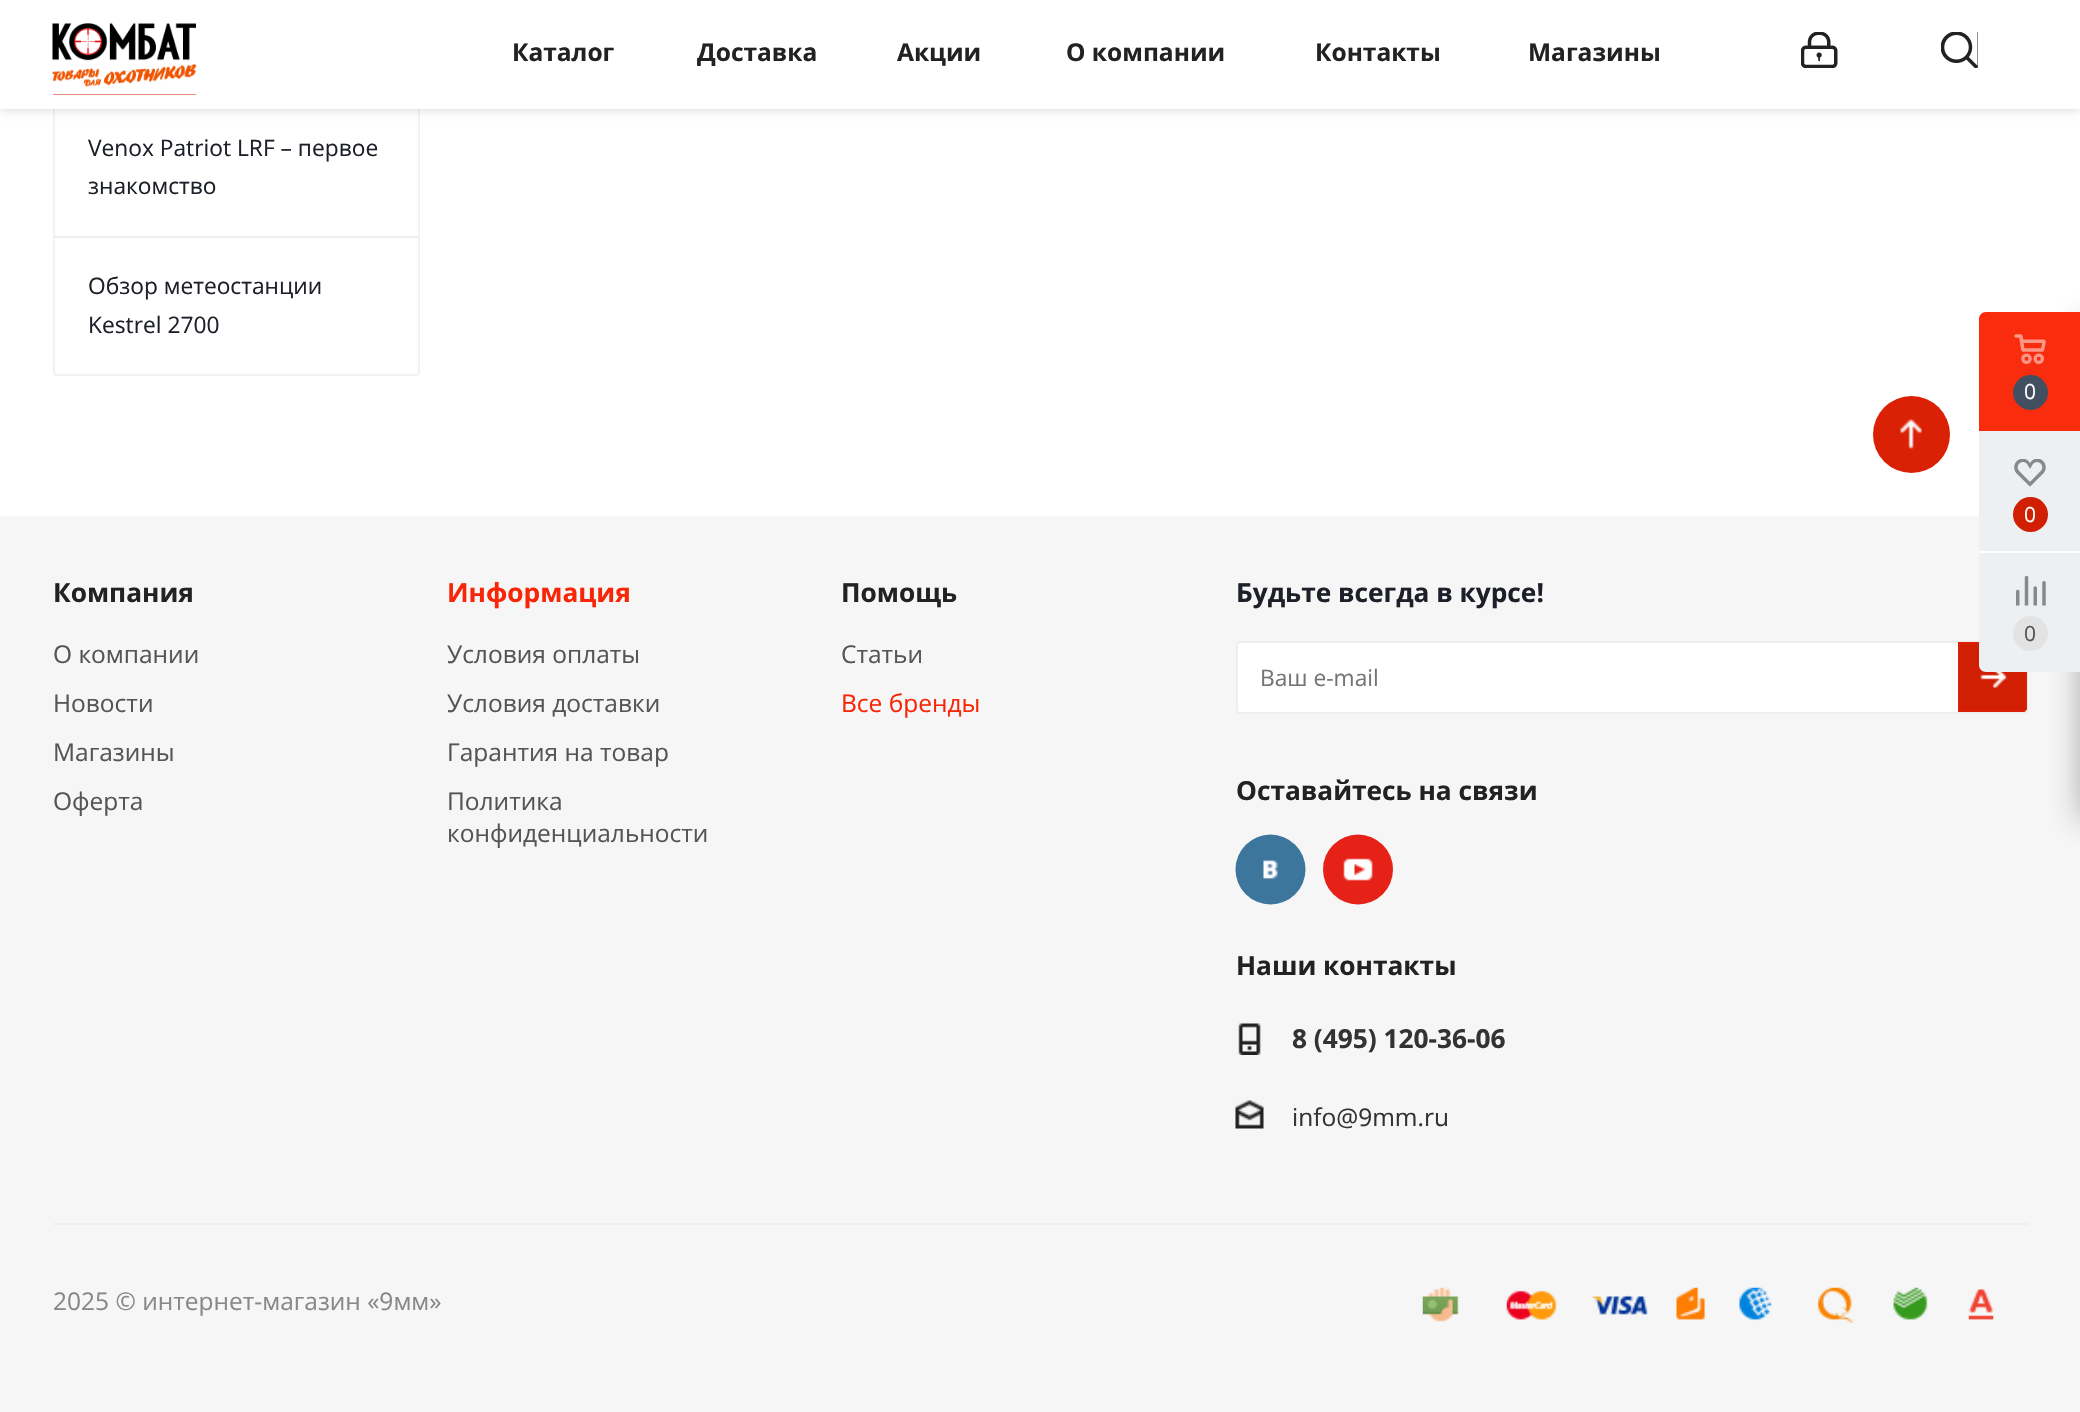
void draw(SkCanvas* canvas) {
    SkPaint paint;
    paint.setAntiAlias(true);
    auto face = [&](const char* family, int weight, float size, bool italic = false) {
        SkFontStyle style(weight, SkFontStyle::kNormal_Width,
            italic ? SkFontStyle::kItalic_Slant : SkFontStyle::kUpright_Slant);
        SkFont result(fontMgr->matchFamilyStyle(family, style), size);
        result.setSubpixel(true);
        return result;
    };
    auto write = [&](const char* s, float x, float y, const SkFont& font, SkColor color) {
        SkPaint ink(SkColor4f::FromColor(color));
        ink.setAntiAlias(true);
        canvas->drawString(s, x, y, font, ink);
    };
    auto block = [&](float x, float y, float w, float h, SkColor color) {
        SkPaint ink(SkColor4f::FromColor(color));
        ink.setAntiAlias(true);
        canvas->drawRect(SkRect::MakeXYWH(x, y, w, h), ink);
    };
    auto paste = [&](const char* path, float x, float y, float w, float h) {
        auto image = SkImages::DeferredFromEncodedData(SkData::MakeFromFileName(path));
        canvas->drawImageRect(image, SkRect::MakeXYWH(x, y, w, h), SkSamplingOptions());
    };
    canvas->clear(SK_ColorWHITE);
    paint.setStyle(SkPaint::kStroke_Style);
    paint.setStrokeWidth(2);
    paint.setColor(SkColorSetRGB(242, 242, 242));
    canvas->drawRoundRect(SkRect::MakeXYWH(54, -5, 365, 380), 3, 3, paint);
    paint.setStyle(SkPaint::kFill_Style);
    paint.setColor(SkColorSetARGB(36, 0, 0, 0));
    paint.setMaskFilter(SkMaskFilter::MakeBlur(kNormal_SkBlurStyle, 4.5f));
    canvas->drawRect(SkRect::MakeXYWH(0, 2, 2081, 108), paint);
    paint.setMaskFilter(nullptr);
    block(0, 0, 2080, 109, SK_ColorWHITE);
    block(53, 94, 143, 1, SkColorSetRGB(214, 31, 4));
    paste("pic1.png", 52, 14, 144, 81);
    auto kFont1 = face("Open Sans", 700, 24.5f);
    write("Каталог", 512, 61, kFont1, SkColorSetRGB(34, 34, 34));
    write("Доставка", 697, 61, kFont1, SkColorSetRGB(34, 34, 34));
    write("Акции", 897, 61, kFont1, SkColorSetRGB(34, 34, 34));
    write("О компании", 1066, 61, kFont1, SkColorSetRGB(34, 34, 34));
    write("Контакты", 1315, 61, kFont1, SkColorSetRGB(34, 34, 34));
    write("Магазины", 1528, 61, kFont1, SkColorSetRGB(34, 34, 34));
    paste("pic2.png", 1801, 32, 37, 36);
    block(1941, 32, 37, 36, SkColorSetRGB(34, 34, 34));
    paste("pic3.png", 1941, 32, 37, 36);
    block(54, 236, 364, 2, SkColorSetRGB(235, 238, 241));
    auto kFont2 = face("Open Sans", 400, 22.75f);
    write("Venox Patriot LRF – первое", 88, 156, kFont2, SkColorSetRGB(29, 32, 41));
    write("знакомство", 88, 194, kFont2, SkColorSetRGB(29, 32, 41));
    write("Обзор метеостанции", 88, 294, kFont2, SkColorSetRGB(29, 32, 41));
    write("Kestrel 2700", 88, 333, kFont2, SkColorSetRGB(29, 32, 41));
    paint.setColor(SkColorSetRGB(218, 33, 5));
    canvas->drawCircle(1911.5f, 434.5f, 38.5f, paint);
    paste("pic4.png", 1900, 419, 22, 30);
    block(0, 516, 2080, 896, SkColorSetRGB(246, 246, 247));
    paint.setColor(SkColorSetARGB(102, 44, 44, 44));
    paint.setMaskFilter(SkMaskFilter::MakeBlur(kNormal_SkBlurStyle, 16));
    canvas->drawRoundRect(SkRect::MakeXYWH(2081, 322, 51, 497), 4, 4, paint);
    paint.setMaskFilter(nullptr);
    paint.setColor(SK_ColorWHITE);
    canvas->drawRoundRect(SkRect::MakeXYWH(1237, 642, 790, 71), 3, 3, paint);
    paint.setStyle(SkPaint::kStroke_Style);
    paint.setColor(SkColorSetRGB(238, 238, 238));
    canvas->drawRoundRect(SkRect::MakeXYWH(1237, 642, 790, 71), 3, 3, paint);
    paint.setStyle(SkPaint::kFill_Style);
    paint.setColor(SkColorSetRGB(209, 31, 4));
    canvas->drawPath(SkPathBuilder().moveTo(1958, 642).lineTo(2023, 642).cubicTo(2025, 642, 2027, 644, 2027, 646).lineTo(2027, 708).cubicTo(2027, 710, 2025, 712, 2023, 712).lineTo(1958, 712).close().detach(), paint);
    paste("pic8.png", 1980, 672, 28, 16);
    paint.setStyle(SkPaint::kStroke_Style);
    paint.setColor(SkColorSetRGB(218, 33, 5));
    canvas->drawPath(SkPathBuilder().moveTo(1959, 643).lineTo(2023, 643).cubicTo(2024.5f, 643, 2026, 644.5f, 2026, 646).lineTo(2026, 708).cubicTo(2026, 709.5f, 2024.5f, 711, 2023, 711).lineTo(1959, 711).close().detach(), paint);
    paint.setStyle(SkPaint::kFill_Style);
    paint.setColor(SkColorSetRGB(237, 240, 243));
    canvas->drawPath(SkPathBuilder().moveTo(1986, 312).lineTo(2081, 312).lineTo(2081, 672).lineTo(1986, 672).cubicTo(1982, 672, 1979, 669, 1979, 665).lineTo(1979, 319).cubicTo(1979, 315, 1982, 312, 1986, 312).close().detach(), paint);
    paint.setColor(SkColorSetRGB(249, 45, 14));
    canvas->drawPath(SkPathBuilder().moveTo(1986, 312).lineTo(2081, 312).lineTo(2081, 431).lineTo(1979, 431).lineTo(1979, 319).cubicTo(1979, 315, 1982, 312, 1986, 312).close().detach(), paint);
    paste("pic5.png", 2014, 334, 32, 30);
    paint.setColor(SkColorSetRGB(66, 79, 96));
    canvas->drawCircle(2030.5f, 392.5f, 17.5f, paint);
    auto kFont3 = face("Open Sans", 400, 21);
    write("0", 2024, 399, kFont3, SK_ColorWHITE);
    paste("pic6.png", 2014, 459, 32, 28);
    paint.setColor(SkColorSetRGB(209, 31, 4));
    canvas->drawCircle(2030.5f, 514.5f, 17.5f, paint);
    write("0", 2024, 522, kFont3, SK_ColorWHITE);
    block(1979, 551, 101, 2, SK_ColorWHITE);
    paste("pic7.png", 2016, 576, 30, 30);
    paint.setColor(SkColorSetRGB(227, 227, 227));
    canvas->drawCircle(2030.5f, 633.5f, 17.5f, paint);
    write("0", 2024, 641, kFont3, SkColorSetRGB(85, 85, 85));
    auto kFont4 = face("Open Sans", 700, 26.25f);
    write("Компания", 53, 602, kFont4, SkColorSetRGB(34, 34, 34));
    auto kFont5 = face("Open Sans", 400, 24.5f);
    write("О компании", 53, 663, kFont5, SkColorSetRGB(85, 85, 85));
    write("Новости", 53, 712, kFont5, SkColorSetRGB(85, 85, 85));
    write("Магазины", 53, 761, kFont5, SkColorSetRGB(85, 85, 85));
    write("Оферта", 53, 810, kFont5, SkColorSetRGB(85, 85, 85));
    write("Информация", 447, 602, kFont4, SkColorSetRGB(248, 38, 6));
    write("Условия оплаты", 447, 663, kFont5, SkColorSetRGB(85, 85, 85));
    write("Условия доставки", 447, 712, kFont5, SkColorSetRGB(85, 85, 85));
    write("Гарантия на товар", 447, 761, kFont5, SkColorSetRGB(85, 85, 85));
    write("Политика", 447, 810, kFont5, SkColorSetRGB(85, 85, 85));
    write("конфиденциальности", 447, 842, kFont5, SkColorSetRGB(85, 85, 85));
    write("Помощь", 841, 602, kFont4, SkColorSetRGB(34, 34, 34));
    write("Статьи", 841, 663, kFont5, SkColorSetRGB(85, 85, 85));
    write("Все бренды", 841, 712, kFont5, SkColorSetRGB(248, 38, 6));
    write("Будьте всегда в курсе!", 1236, 602, kFont4, SkColorSetRGB(29, 32, 41));
    write("Ваш e-mail", 1260, 686, kFont2, SkColorSetRGB(117, 117, 117));
    write("Оставайтесь на связи", 1236, 800, kFont4, SkColorSetRGB(34, 34, 34));
    paste("pic9.png", 1235, 834, 71, 71);
    paste("pic10.png", 1323, 834, 71, 71);
    write("Наши контакты", 1236, 975, kFont4, SkColorSetRGB(34, 34, 34));
    paste("pic11.png", 1238, 1023, 23, 32);
    write("8 (495) 120-36-06", 1292, 1048, kFont4, SkColorSetRGB(51, 51, 51));
    paste("pic12.png", 1235, 1100, 29, 29);
    write("info@9mm.ru", 1292, 1126, kFont5, SkColorSetRGB(51, 51, 51));
    block(53, 1223, 1975, 2, SkColorSetRGB(238, 238, 238));
    write("2025 © интернет-магазин «9мм»", 53, 1310, kFont5, SkColorSetRGB(136, 136, 136));
    paste("pic13.png", 1422, 1287, 37, 35);
    paste("pic14.png", 1506, 1290, 51, 31);
    paste("pic15.png", 1592, 1295, 56, 20);
    paste("pic16.png", 1676, 1287, 29, 33);
    paste("pic17.png", 1739, 1287, 33, 34);
    paste("pic18.png", 1818, 1287, 36, 36);
    paste("pic19.png", 1893, 1287, 35, 33);
    paste("pic20.png", 1968, 1289, 26, 31);
}
